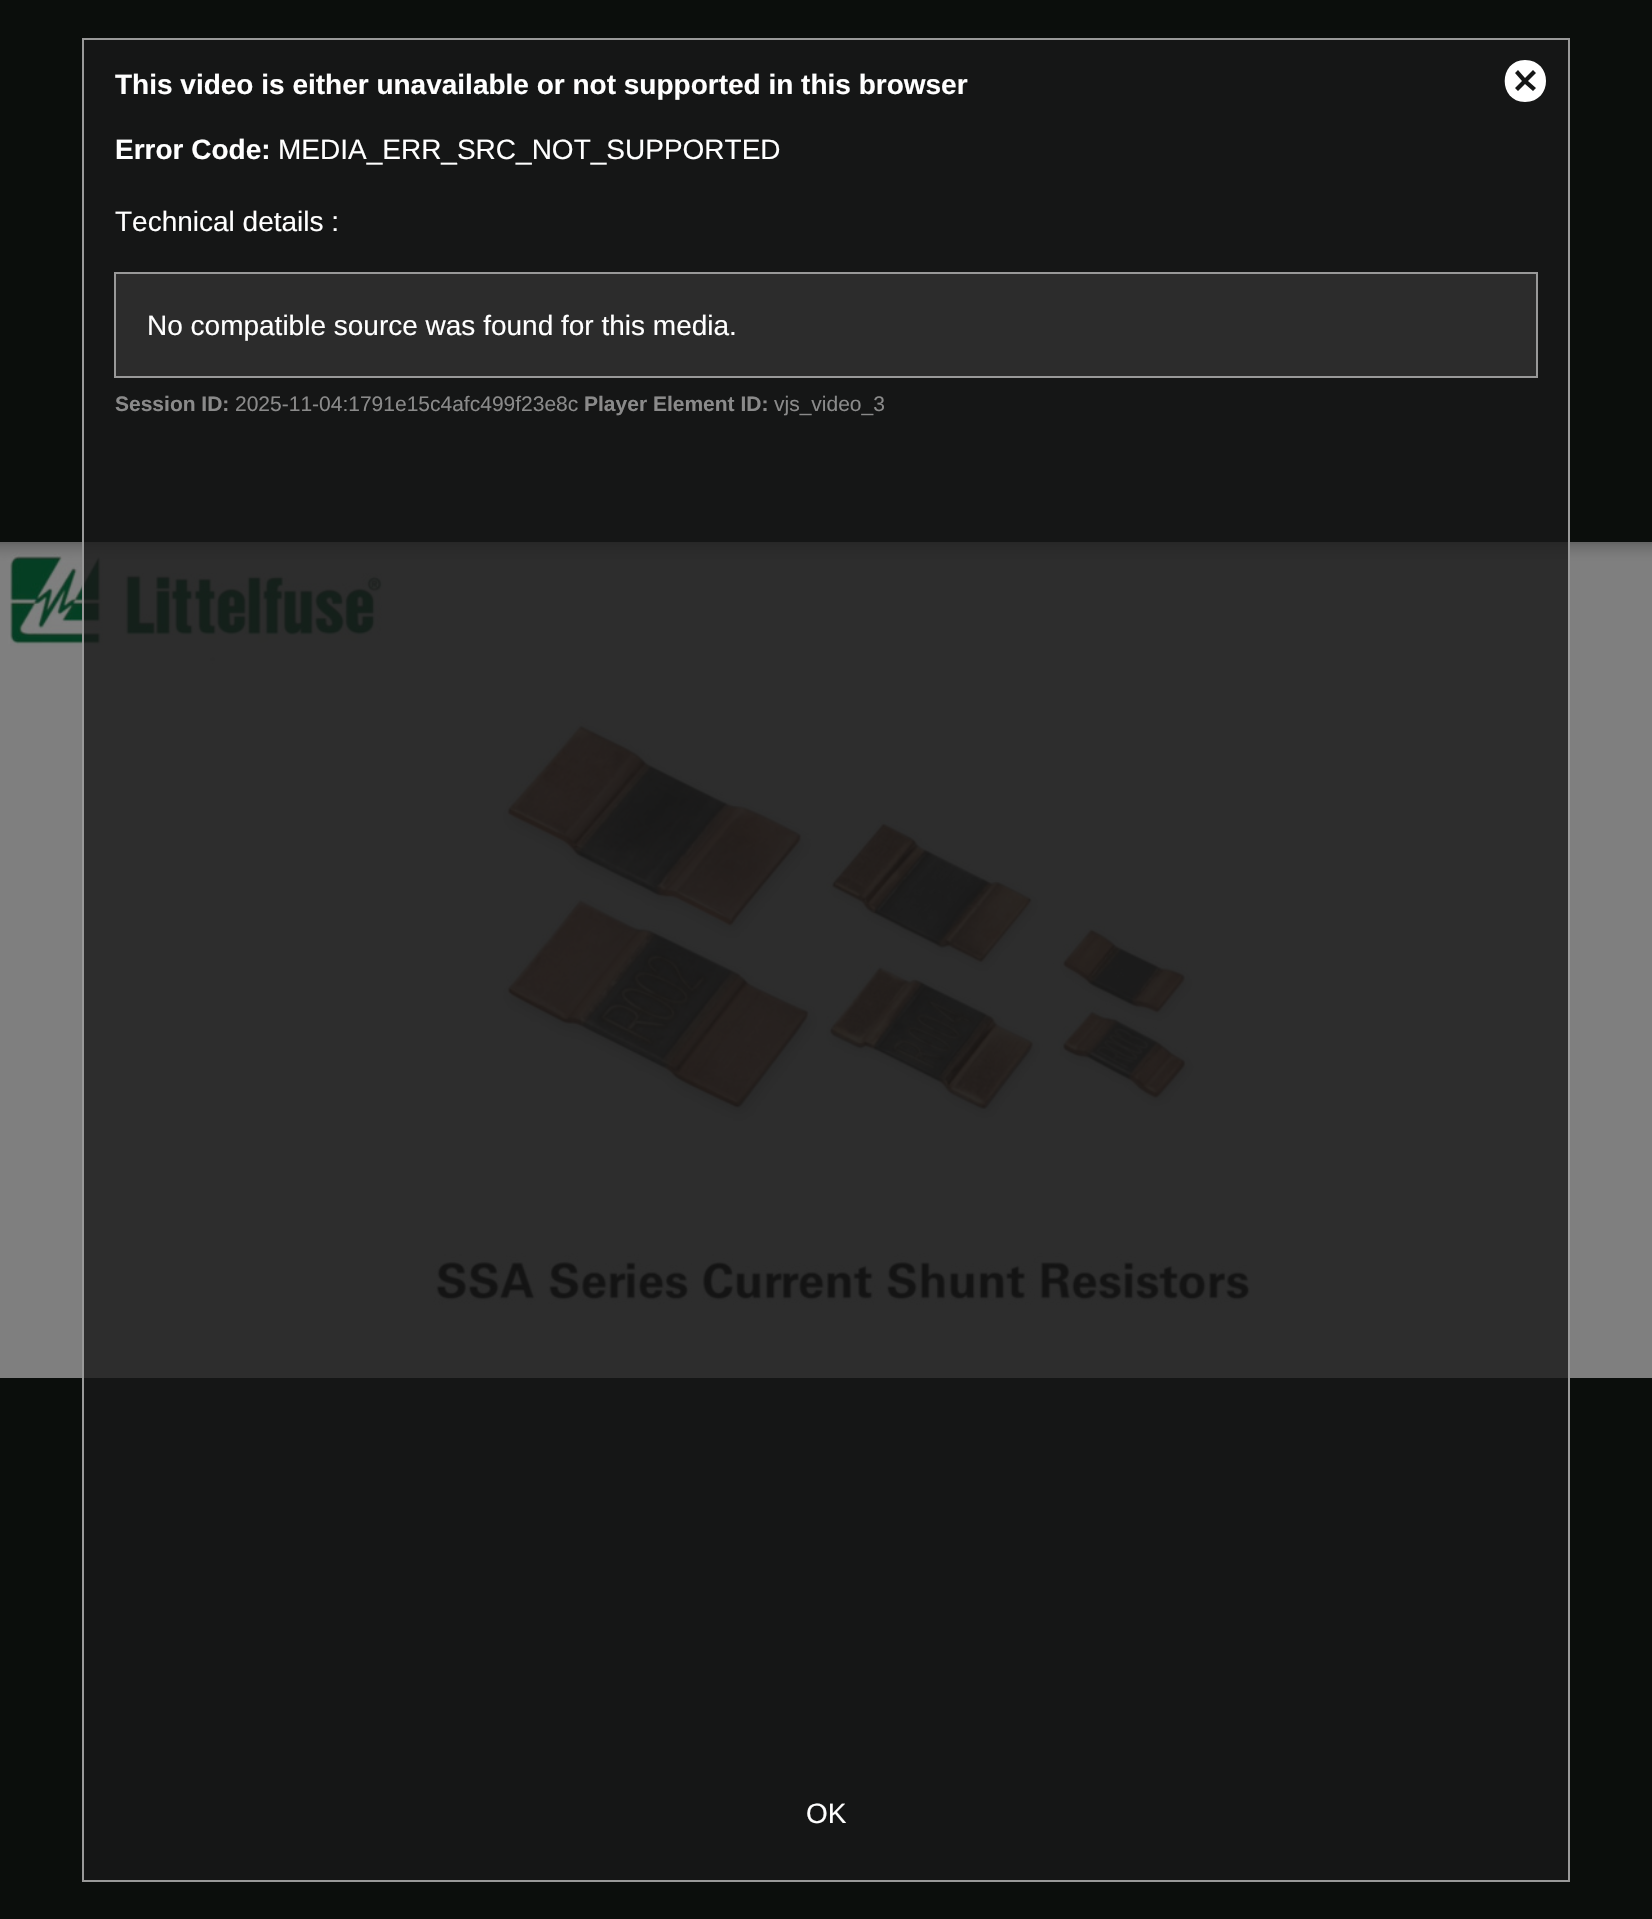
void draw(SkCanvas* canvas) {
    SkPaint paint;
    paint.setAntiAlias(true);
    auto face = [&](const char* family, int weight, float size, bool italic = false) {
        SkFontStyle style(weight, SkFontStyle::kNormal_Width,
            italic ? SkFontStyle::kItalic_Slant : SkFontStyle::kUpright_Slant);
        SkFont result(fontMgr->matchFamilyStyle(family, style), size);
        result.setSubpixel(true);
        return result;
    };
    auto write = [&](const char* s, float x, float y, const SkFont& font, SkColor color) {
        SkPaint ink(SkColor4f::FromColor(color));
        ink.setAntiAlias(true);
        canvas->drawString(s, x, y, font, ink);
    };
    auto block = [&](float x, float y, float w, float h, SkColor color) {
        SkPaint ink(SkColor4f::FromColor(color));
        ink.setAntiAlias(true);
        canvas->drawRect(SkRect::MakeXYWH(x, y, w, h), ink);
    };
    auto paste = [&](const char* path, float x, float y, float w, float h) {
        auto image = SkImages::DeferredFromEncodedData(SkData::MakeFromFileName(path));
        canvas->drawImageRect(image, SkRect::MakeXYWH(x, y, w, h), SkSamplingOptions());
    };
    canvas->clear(SkColorSetRGB(11, 14, 12));
    block(84, 40, 1484, 1840, SkColorSetRGB(21, 22, 22));
    paste("pic1.png", 0, 542, 1652, 836);
    paint.setStyle(SkPaint::kStroke_Style);
    paint.setStrokeWidth(2);
    paint.setColor(SkColorSetRGB(153, 153, 153));
    canvas->drawRect(SkRect::MakeXYWH(83, 39, 1486, 1842), paint);
    auto kFont1 = face("Liberation Sans", 700, 28);
    write("This video is either unavailable or not supported in this browser", 115, 94, kFont1, SK_ColorWHITE);
    write("Error Code:", 115, 159, kFont1, SK_ColorWHITE);
    auto kFont2 = face("Liberation Sans", 400, 28);
    write("MEDIA_ERR_SRC_NOT_SUPPORTED", 278, 159, kFont2, SK_ColorWHITE);
    write("Technical details :", 115, 231, kFont2, SK_ColorWHITE);
    paint.setStyle(SkPaint::kFill_Style);
    paint.setColor(SkColorSetRGB(44, 44, 44));
    canvas->drawRect(SkRect::MakeXYWH(115, 273, 1422, 104), paint);
    paint.setStyle(SkPaint::kStroke_Style);
    paint.setColor(SkColorSetRGB(153, 153, 153));
    canvas->drawRect(SkRect::MakeXYWH(115, 273, 1422, 104), paint);
    write("No compatible source was found for this media.", 147, 335, kFont2, SK_ColorWHITE);
    auto kFont3 = face("Liberation Sans", 700, 21);
    write("Session ID:", 115, 411, kFont3, SkColorSetRGB(138, 138, 138));
    auto kFont4 = face("Liberation Sans", 400, 21);
    write("2025-11-04:1791e15c4afc499f23e8c", 235, 411, kFont4, SkColorSetRGB(138, 138, 138));
    write("Player Element ID:", 584, 411, kFont3, SkColorSetRGB(138, 138, 138));
    write("vjs_video_3", 774, 411, kFont4, SkColorSetRGB(138, 138, 138));
    paint.setStyle(SkPaint::kFill_Style);
    paint.setColor(SK_ColorWHITE);
    canvas->drawPath(SkPathBuilder().moveTo(1525, 60).cubicTo(1498, 60, 1498, 102, 1525, 102).cubicTo(1553, 102, 1553, 60, 1525, 60).close().moveTo(1536, 88).lineTo(1533, 91).lineTo(1525, 84).lineTo(1518, 91).lineTo(1515, 88).lineTo(1522, 81).lineTo(1515, 73).lineTo(1518, 70).lineTo(1525, 78).lineTo(1533, 70).lineTo(1536, 73).lineTo(1528, 81).close().detach(), paint);
    write("OK", 806, 1823, kFont2, SK_ColorWHITE);
}
